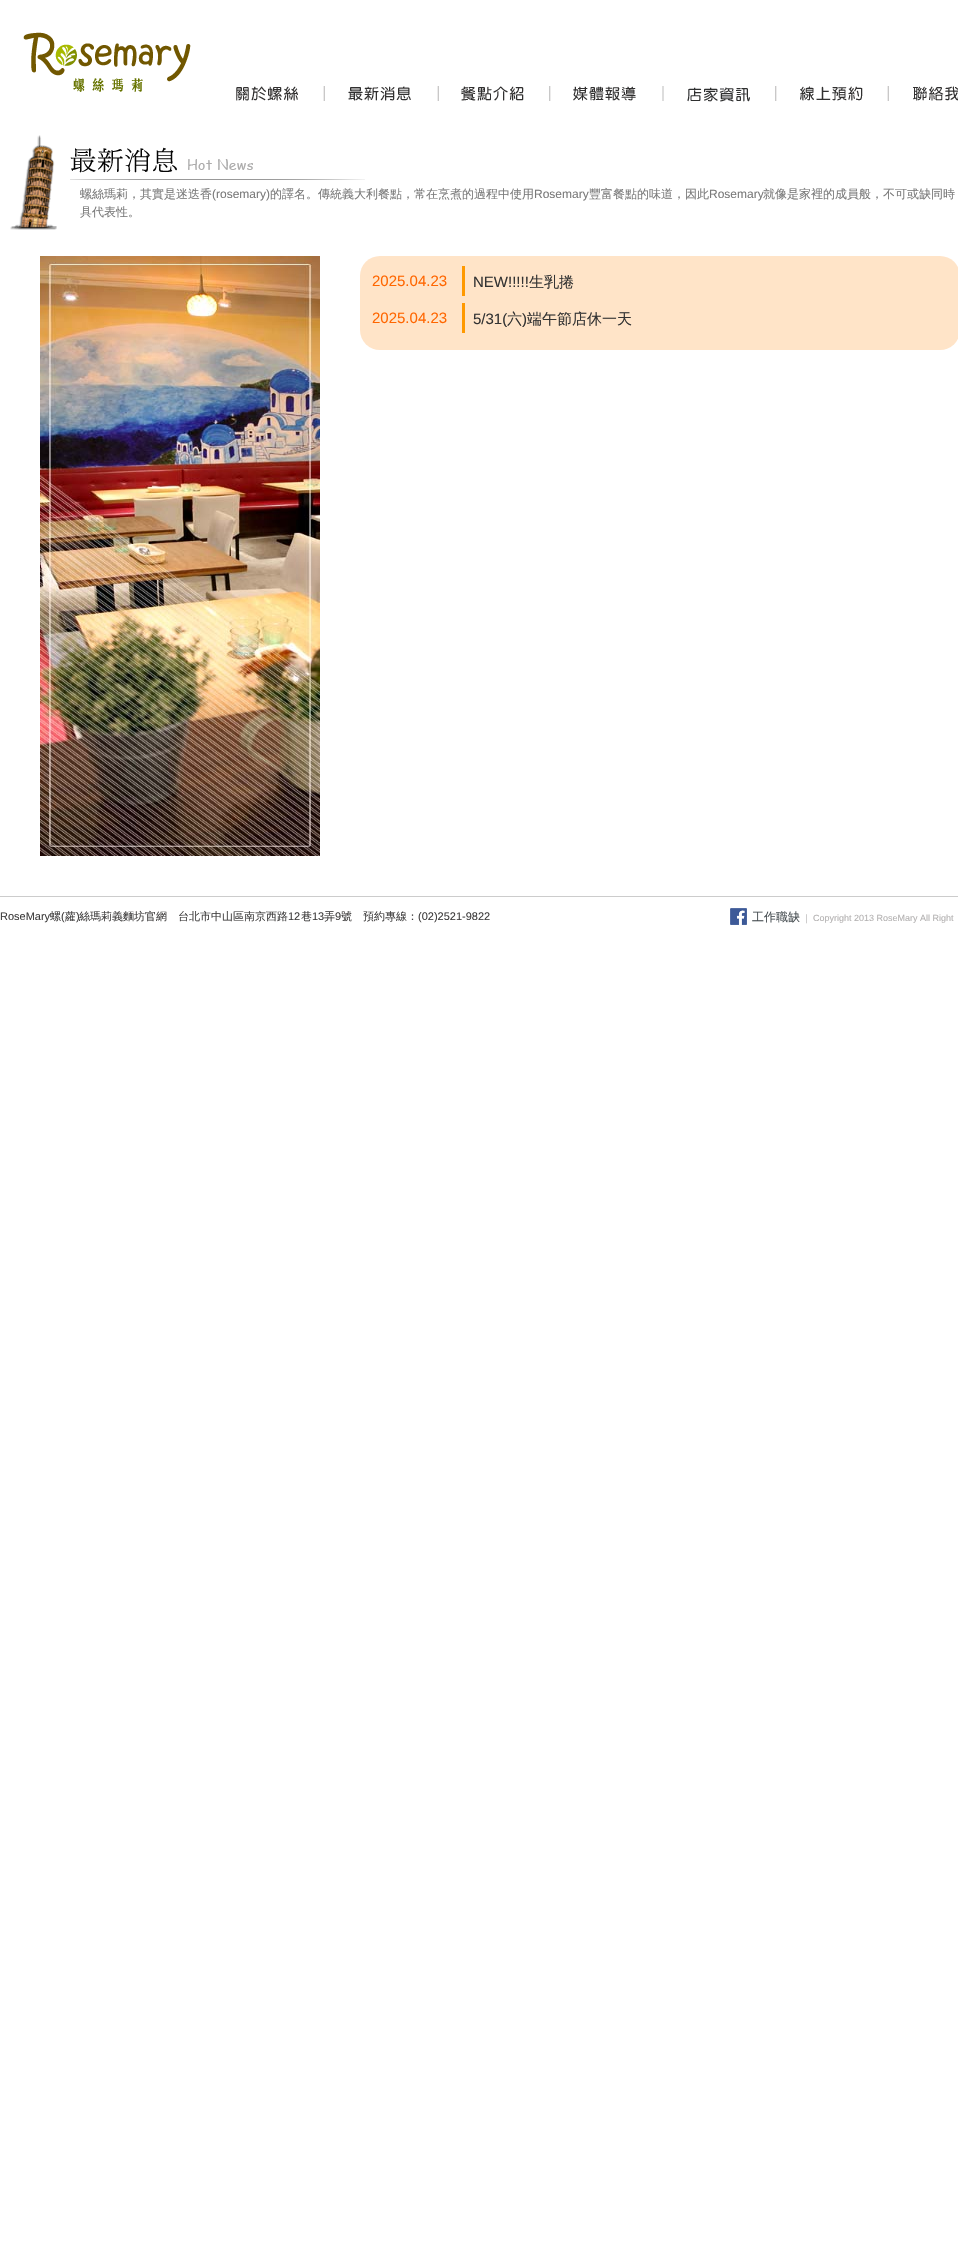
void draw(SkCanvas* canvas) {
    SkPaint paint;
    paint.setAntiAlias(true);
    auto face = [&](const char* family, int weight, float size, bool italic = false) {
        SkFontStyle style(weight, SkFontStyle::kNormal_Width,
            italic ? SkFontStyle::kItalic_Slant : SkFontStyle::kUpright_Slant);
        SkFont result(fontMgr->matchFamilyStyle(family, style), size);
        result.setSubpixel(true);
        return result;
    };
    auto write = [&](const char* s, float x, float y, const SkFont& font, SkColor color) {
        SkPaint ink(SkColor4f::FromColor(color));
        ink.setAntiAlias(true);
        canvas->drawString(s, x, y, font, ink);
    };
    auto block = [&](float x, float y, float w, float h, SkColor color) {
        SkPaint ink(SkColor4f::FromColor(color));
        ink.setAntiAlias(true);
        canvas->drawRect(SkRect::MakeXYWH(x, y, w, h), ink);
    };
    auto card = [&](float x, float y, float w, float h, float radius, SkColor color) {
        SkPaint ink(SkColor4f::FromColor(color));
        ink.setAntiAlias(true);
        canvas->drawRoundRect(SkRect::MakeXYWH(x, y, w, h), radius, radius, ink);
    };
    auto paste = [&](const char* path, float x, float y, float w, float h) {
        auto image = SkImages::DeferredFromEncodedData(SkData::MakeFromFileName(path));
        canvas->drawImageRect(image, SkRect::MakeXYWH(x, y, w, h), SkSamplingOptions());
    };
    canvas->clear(SK_ColorWHITE);
    paste("pic1.png", 23, 32, 168, 60);
    paste("pic2.png", 236, 86, 62, 15);
    paste("pic3.png", 323, 86, 88, 15);
    paste("pic4.png", 437, 86, 87, 15);
    paste("pic5.png", 549, 86, 87, 15);
    paste("pic6.png", 662, 86, 88, 16);
    paste("pic7.png", 775, 86, 88, 15);
    paste("pic8.png", 887, 86, 71, 15);
    paste("pic9.png", 10, 135, 47, 95);
    paste("pic10.png", 70, 147, 295, 33);
    auto kFont1 = face("WenQuanYi Zen Hei", 500, 12);
    write("螺絲瑪莉，其實是迷迭香", 80, 198, kFont1, SkColorSetRGB(122, 122, 122));
    auto kFont2 = face("Liberation Sans", 400, 12);
    write("(rosemary)", 212, 198, kFont2, SkColorSetRGB(122, 122, 122));
    write("的譯名。傳統義大利餐點，常在烹煮的過程中使用", 270, 198, kFont1, SkColorSetRGB(122, 122, 122));
    write("Rosemary", 534, 198, kFont2, SkColorSetRGB(122, 122, 122));
    write("豐富餐點的味道，因此", 589, 198, kFont1, SkColorSetRGB(122, 122, 122));
    write("Rosemary", 709, 198, kFont2, SkColorSetRGB(122, 122, 122));
    write("就像是家裡的成員般，不可或缺同時", 763, 198, kFont1, SkColorSetRGB(122, 122, 122));
    write("具代表性。", 80, 216, kFont1, SkColorSetRGB(122, 122, 122));
    paste("pic11.png", 40, 256, 280, 600);
    card(360, 256, 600, 94, 20, SkColorSetRGB(255, 228, 200));
    block(462, 266, 3, 30, SkColorSetRGB(255, 153, 0));
    auto kFont3 = face("Liberation Sans", 400, 15);
    write("2025.04.23", 372, 286, kFont3, SkColorSetRGB(255, 102, 0));
    write("NEW!!!!!", 473, 287, kFont3, SkColorSetRGB(51, 51, 51));
    auto kFont4 = face("WenQuanYi Zen Hei", 500, 15);
    write("生乳捲", 529, 287, kFont4, SkColorSetRGB(51, 51, 51));
    block(462, 303, 3, 30, SkColorSetRGB(255, 153, 0));
    write("2025.04.23", 372, 323, kFont3, SkColorSetRGB(255, 102, 0));
    write("5/31(", 473, 324, kFont3, SkColorSetRGB(51, 51, 51));
    write("六", 507, 324, kFont4, SkColorSetRGB(51, 51, 51));
    write(")", 522, 324, kFont3, SkColorSetRGB(51, 51, 51));
    write("端午節店休一天", 527, 324, kFont4, SkColorSetRGB(51, 51, 51));
    block(0, 896, 958, 1, SkColorSetRGB(204, 204, 204));
    auto kFont5 = face("Liberation Sans", 400, 11);
    write("RoseMary", 0, 920, kFont5, SkColorSetRGB(63, 62, 62));
    auto kFont6 = face("WenQuanYi Zen Hei", 500, 11);
    write("螺", 50, 920, kFont6, SkColorSetRGB(63, 62, 62));
    write("(", 61, 920, kFont5, SkColorSetRGB(63, 62, 62));
    write("蘿", 65, 920, kFont6, SkColorSetRGB(63, 62, 62));
    write(")", 76, 920, kFont5, SkColorSetRGB(63, 62, 62));
    write("絲瑪莉義麵坊官網　台北市中山區南京西路", 79, 920, kFont6, SkColorSetRGB(63, 62, 62));
    write("12", 288, 920, kFont5, SkColorSetRGB(63, 62, 62));
    write("巷", 301, 920, kFont6, SkColorSetRGB(63, 62, 62));
    write("13", 312, 920, kFont5, SkColorSetRGB(63, 62, 62));
    write("弄", 324, 920, kFont6, SkColorSetRGB(63, 62, 62));
    write("9", 335, 920, kFont5, SkColorSetRGB(63, 62, 62));
    write("號　預約專線：", 341, 920, kFont6, SkColorSetRGB(63, 62, 62));
    write("(02)2521-9822", 418, 920, kFont5, SkColorSetRGB(63, 62, 62));
    paste("pic12.png", 730, 908, 17, 17);
    write("工作職缺", 752, 921, kFont1, SkColorSetRGB(71, 78, 82));
    auto kFont7 = face("WenQuanYi Zen Hei", 500, 9);
    write("｜", 802, 921, kFont7, SkColorSetRGB(179, 177, 177));
    auto kFont8 = face("Liberation Sans", 400, 9);
    write("Copyright 2013 RoseMary All Right", 813, 921, kFont8, SkColorSetRGB(179, 177, 177));
}
